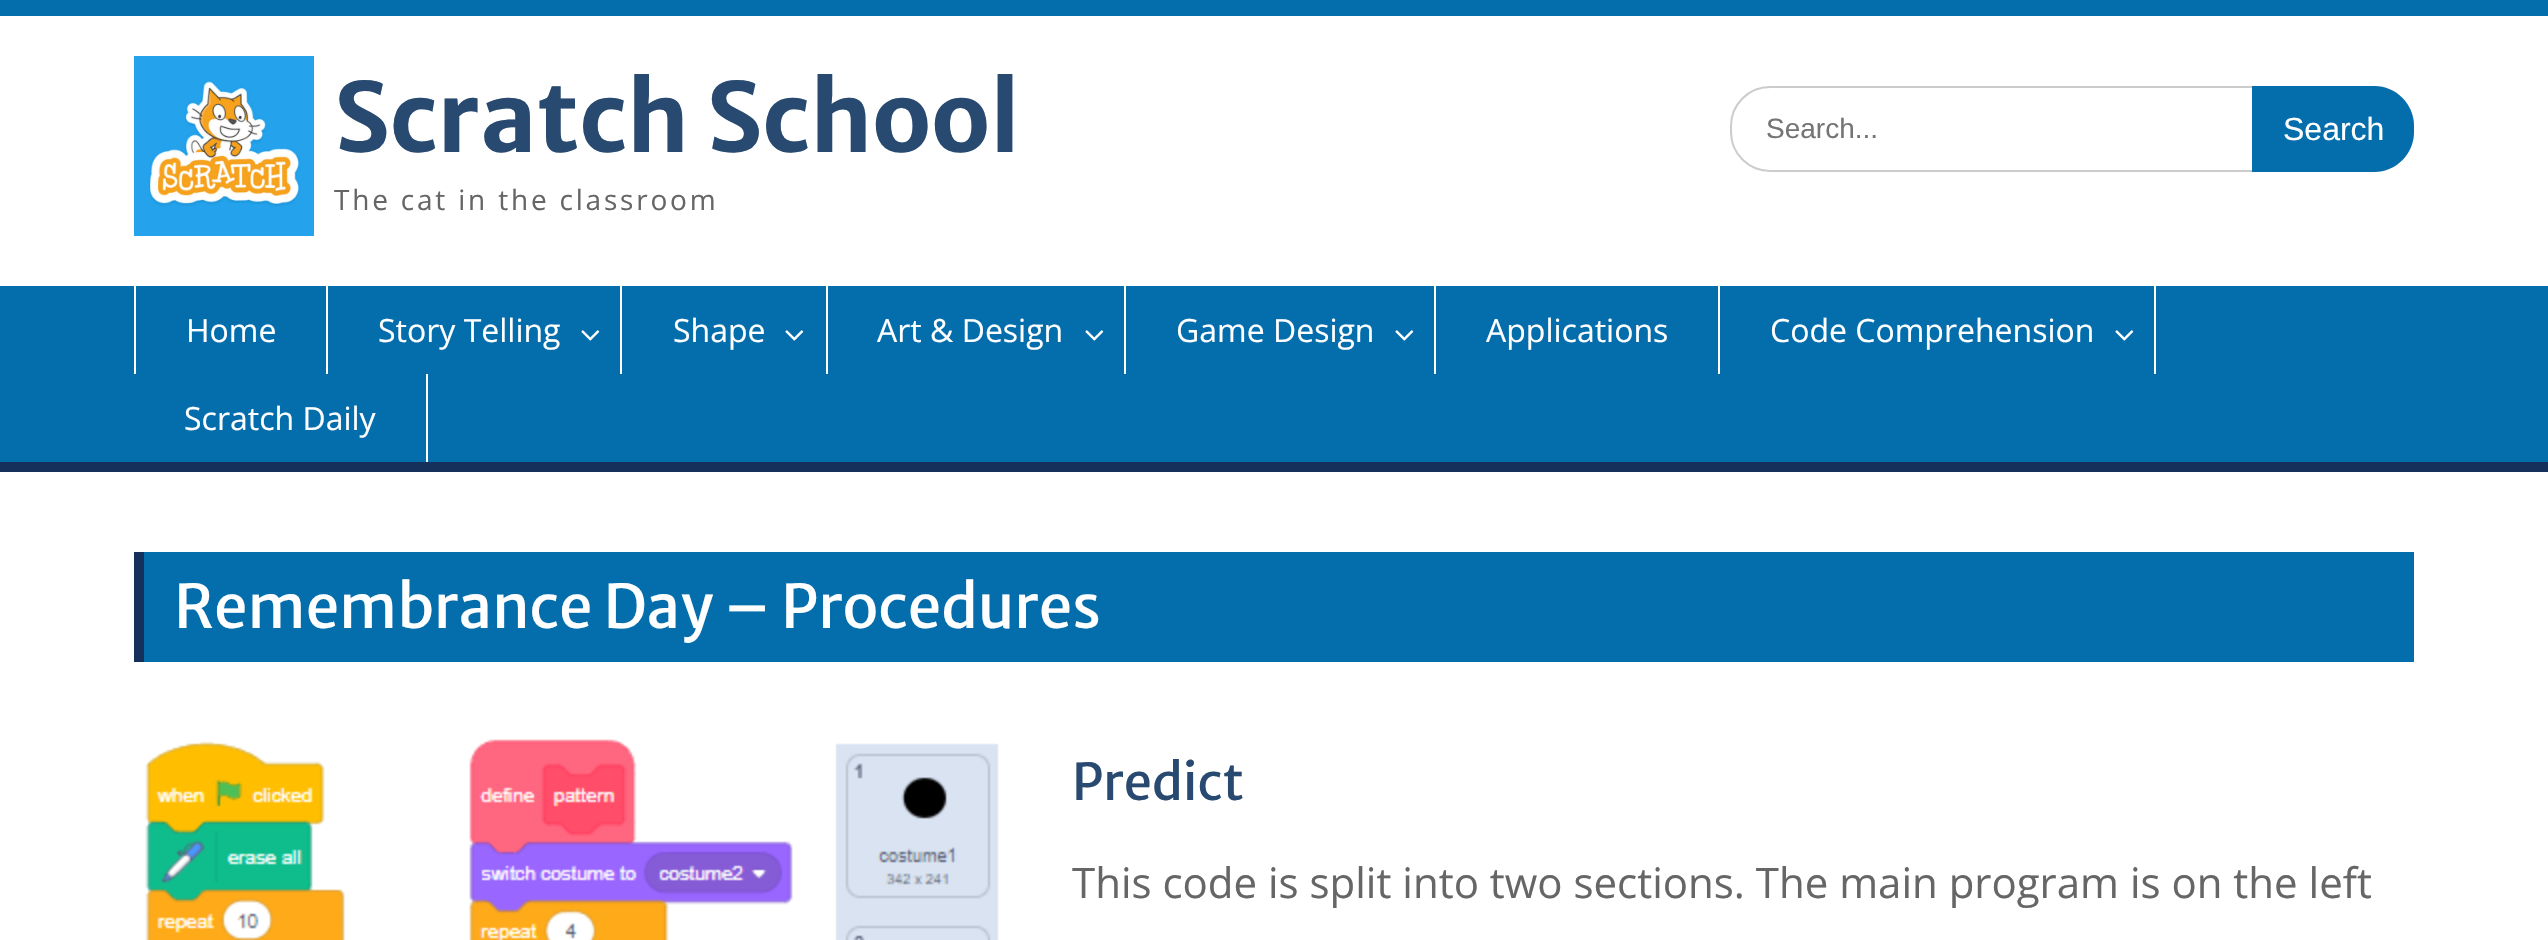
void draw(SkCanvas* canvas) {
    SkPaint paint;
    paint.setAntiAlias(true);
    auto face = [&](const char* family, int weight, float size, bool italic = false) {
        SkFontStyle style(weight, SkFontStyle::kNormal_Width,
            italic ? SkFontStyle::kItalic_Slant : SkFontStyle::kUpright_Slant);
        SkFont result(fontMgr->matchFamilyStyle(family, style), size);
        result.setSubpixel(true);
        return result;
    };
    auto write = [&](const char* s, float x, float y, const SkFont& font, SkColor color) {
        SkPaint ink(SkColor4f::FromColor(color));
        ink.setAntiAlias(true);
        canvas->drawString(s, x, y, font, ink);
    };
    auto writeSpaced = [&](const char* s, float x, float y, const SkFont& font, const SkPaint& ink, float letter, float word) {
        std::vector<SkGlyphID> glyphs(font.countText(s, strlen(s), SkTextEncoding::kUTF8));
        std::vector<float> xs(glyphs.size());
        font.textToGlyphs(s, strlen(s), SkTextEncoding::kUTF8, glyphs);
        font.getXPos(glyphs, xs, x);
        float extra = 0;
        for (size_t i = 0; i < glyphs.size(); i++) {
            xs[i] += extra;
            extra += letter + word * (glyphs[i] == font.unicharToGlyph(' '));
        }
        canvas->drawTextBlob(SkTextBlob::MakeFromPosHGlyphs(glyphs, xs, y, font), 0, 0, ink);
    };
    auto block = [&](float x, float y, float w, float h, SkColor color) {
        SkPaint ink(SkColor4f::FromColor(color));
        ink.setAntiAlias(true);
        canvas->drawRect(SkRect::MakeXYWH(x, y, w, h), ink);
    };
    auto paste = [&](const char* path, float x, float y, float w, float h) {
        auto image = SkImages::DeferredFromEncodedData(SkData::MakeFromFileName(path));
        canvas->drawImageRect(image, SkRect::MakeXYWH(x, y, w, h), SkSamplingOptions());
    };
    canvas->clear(SK_ColorWHITE);
    block(0, 0, 2548, 16, SkColorSetRGB(4, 109, 172));
    paste("pic1.png", 134, 56, 180, 180);
    auto kFont1 = face("Merriweather Sans", 700, 96);
    write("Scratch School", 334, 152, kFont1, SkColorSetRGB(41, 74, 112));
    auto kFont2 = face("Open Sans", 400, 28);
    paint.setColor(SkColorSetRGB(102, 102, 102));
    writeSpaced("The cat in the classroom", 334, 210, kFont2, paint, 2.8f, 0);
    paint.setStyle(SkPaint::kStroke_Style);
    paint.setStrokeWidth(2);
    paint.setColor(SkColorSetRGB(204, 204, 204));
    canvas->drawRoundRect(SkRect::MakeXYWH(1731, 87, 682, 84), 39, 39, paint);
    auto kFont3 = face("Liberation Sans", 400, 28);
    write("Search...", 1766, 138, kFont3, SkColorSetRGB(117, 117, 117));
    paint.setStyle(SkPaint::kFill_Style);
    paint.setColor(SkColorSetRGB(4, 109, 172));
    canvas->drawPath(SkPathBuilder().moveTo(2252, 86).lineTo(2374, 86).cubicTo(2396, 86, 2414, 104, 2414, 126).lineTo(2414, 132).cubicTo(2414, 154, 2396, 172, 2374, 172).lineTo(2252, 172).close().detach(), paint);
    auto kFont4 = face("Liberation Sans", 400, 32);
    write("Search", 2283, 140, kFont4, SK_ColorWHITE);
    block(0, 286, 2548, 176, SkColorSetRGB(4, 109, 172));
    block(0, 462, 2548, 10, SkColorSetRGB(21, 48, 91));
    block(326, 286, 2, 88, SK_ColorWHITE);
    block(134, 286, 2, 88, SK_ColorWHITE);
    auto kFont5 = face("Open Sans", 400, 32);
    write("Home", 186, 342, kFont5, SK_ColorWHITE);
    block(620, 286, 2, 88, SK_ColorWHITE);
    write("Story Telling", 378, 342, kFont5, SK_ColorWHITE);
    paste("pic2.png", 581, 330, 19, 11);
    block(826, 286, 2, 88, SK_ColorWHITE);
    write("Shape", 673, 342, kFont5, SK_ColorWHITE);
    paste("pic2.png", 785, 330, 19, 11);
    block(1124, 286, 2, 88, SK_ColorWHITE);
    write("Art & Design", 877, 342, kFont5, SK_ColorWHITE);
    paste("pic2.png", 1085, 330, 19, 11);
    block(1434, 286, 2, 88, SK_ColorWHITE);
    write("Game Design", 1176, 342, kFont5, SK_ColorWHITE);
    paste("pic2.png", 1395, 330, 19, 11);
    block(1718, 286, 2, 88, SK_ColorWHITE);
    write("Applications", 1486, 342, kFont5, SK_ColorWHITE);
    block(2154, 286, 2, 88, SK_ColorWHITE);
    write("Code Comprehension", 1770, 342, kFont5, SK_ColorWHITE);
    paste("pic2.png", 2115, 330, 19, 11);
    block(426, 374, 2, 88, SK_ColorWHITE);
    write("Scratch Daily", 184, 430, kFont5, SK_ColorWHITE);
    block(144, 552, 2270, 110, SkColorSetRGB(4, 109, 172));
    block(134, 552, 10, 110, SkColorSetRGB(21, 48, 91));
    auto kFont6 = face("Merriweather Sans", 400, 60);
    write("Remembrance Day – Procedures", 174, 628, kFont6, SK_ColorWHITE);
    paste("pic3.png", 145, 739, 854, 201);
    auto kFont7 = face("Merriweather Sans", 400, 50.5f);
    write("Predict", 1072, 800, kFont7, SkColorSetRGB(41, 74, 112));
    auto kFont8 = face("Open Sans", 400, 42);
    write("This code is split into two sections. The main program is on the left", 1072, 898, kFont8, SkColorSetRGB(102, 102, 102));
}
